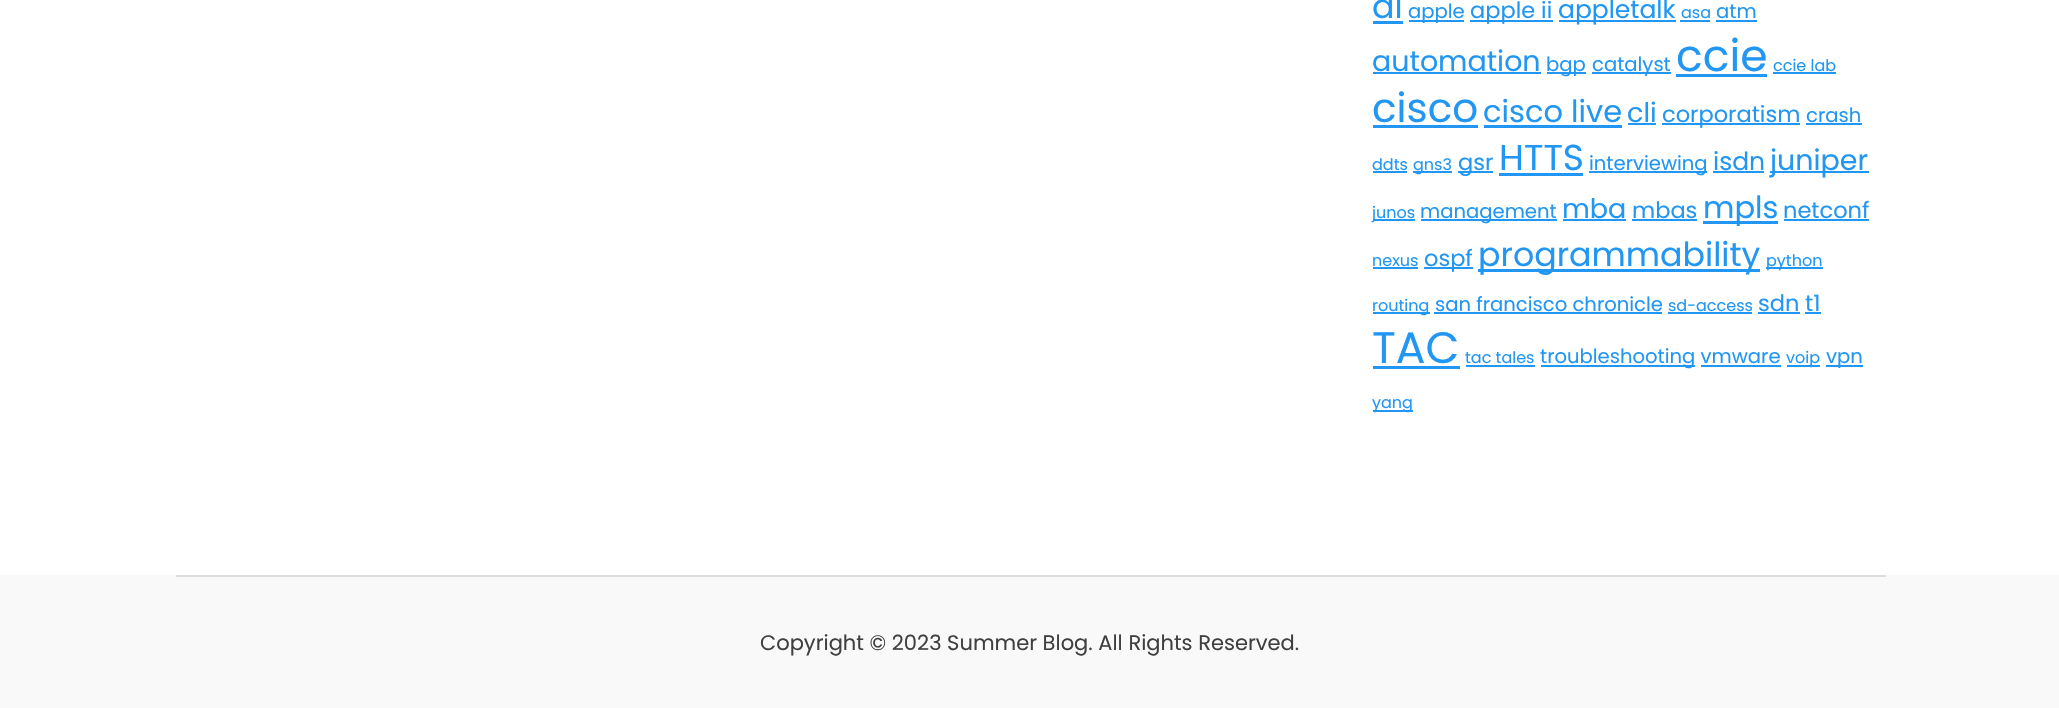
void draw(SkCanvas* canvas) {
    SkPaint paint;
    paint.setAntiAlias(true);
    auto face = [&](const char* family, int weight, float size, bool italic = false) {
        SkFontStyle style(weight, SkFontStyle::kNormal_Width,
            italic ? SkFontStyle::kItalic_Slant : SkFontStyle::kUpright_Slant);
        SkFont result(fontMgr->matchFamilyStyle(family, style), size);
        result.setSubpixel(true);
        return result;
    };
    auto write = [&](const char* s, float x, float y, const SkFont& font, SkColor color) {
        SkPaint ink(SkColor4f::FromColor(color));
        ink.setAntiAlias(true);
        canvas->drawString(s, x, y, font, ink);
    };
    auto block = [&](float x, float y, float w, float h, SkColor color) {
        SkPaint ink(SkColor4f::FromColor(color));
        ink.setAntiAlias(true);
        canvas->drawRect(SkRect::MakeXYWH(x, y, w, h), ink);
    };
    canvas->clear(SK_ColorWHITE);
    auto kFont1 = face("Poppins", 400, 33.25f);
    write("ai", 1372, 18, kFont1, SkColorSetRGB(33, 150, 243));
    block(1373, 21, 30, 3, SkColorSetRGB(33, 150, 243));
    block(1409, 20, 55, 2, SkColorSetRGB(33, 150, 243));
    auto kFont2 = face("Poppins", 400, 19.6f);
    write("apple", 1408, 18, kFont2, SkColorSetRGB(33, 150, 243));
    block(1470, 20, 83, 2, SkColorSetRGB(33, 150, 243));
    auto kFont3 = face("Poppins", 400, 22.5f);
    write("apple ii", 1470, 18, kFont3, SkColorSetRGB(33, 150, 243));
    block(1559, 20, 117, 2, SkColorSetRGB(33, 150, 243));
    auto kFont4 = face("Poppins", 400, 25);
    write("appletalk", 1558, 18, kFont4, SkColorSetRGB(33, 150, 243));
    auto kFont5 = face("Poppins", 400, 16);
    write("asa", 1681, 18, kFont5, SkColorSetRGB(33, 150, 243));
    block(1680, 20, 30, 2, SkColorSetRGB(33, 150, 243));
    write("atm", 1716, 18, kFont2, SkColorSetRGB(33, 150, 243));
    block(1716, 20, 41, 2, SkColorSetRGB(33, 150, 243));
    auto kFont6 = face("Poppins", 400, 28.5f);
    write("automation", 1372, 71, kFont6, SkColorSetRGB(33, 150, 243));
    block(1373, 72, 168, 2, SkColorSetRGB(33, 150, 243));
    block(1547, 72, 39, 2, SkColorSetRGB(33, 150, 243));
    write("bgp", 1546, 71, kFont2, SkColorSetRGB(33, 150, 243));
    block(1592, 72, 79, 2, SkColorSetRGB(33, 150, 243));
    write("catalyst", 1592, 71, kFont2, SkColorSetRGB(33, 150, 243));
    auto kFont7 = face("Poppins", 400, 44);
    write("ccie", 1676, 71, kFont7, SkColorSetRGB(33, 150, 243));
    block(1676, 74, 91, 3, SkColorSetRGB(33, 150, 243));
    write("ccie lab", 1773, 71, kFont5, SkColorSetRGB(33, 150, 243));
    block(1773, 72, 63, 2, SkColorSetRGB(33, 150, 243));
    auto kFont8 = face("Poppins", 400, 40.5f);
    write("cisco", 1372, 122, kFont8, SkColorSetRGB(33, 150, 243));
    block(1373, 125, 105, 3, SkColorSetRGB(33, 150, 243));
    auto kFont9 = face("Poppins", 400, 30.5f);
    write("cisco live", 1483, 122, kFont9, SkColorSetRGB(33, 150, 243));
    block(1484, 125, 138, 3, SkColorSetRGB(33, 150, 243));
    auto kFont10 = face("Poppins", 400, 27);
    write("cli", 1627, 122, kFont10, SkColorSetRGB(33, 150, 243));
    block(1628, 123, 28, 2, SkColorSetRGB(33, 150, 243));
    block(1662, 123, 138, 2, SkColorSetRGB(33, 150, 243));
    write("corporatism", 1662, 122, kFont3, SkColorSetRGB(33, 150, 243));
    write("crash", 1806, 122, kFont2, SkColorSetRGB(33, 150, 243));
    block(1806, 123, 56, 2, SkColorSetRGB(33, 150, 243));
    write("ddts", 1372, 170, kFont5, SkColorSetRGB(33, 150, 243));
    block(1373, 171, 34, 2, SkColorSetRGB(33, 150, 243));
    block(1413, 171, 39, 2, SkColorSetRGB(33, 150, 243));
    write("gns3", 1413, 170, kFont5, SkColorSetRGB(33, 150, 243));
    block(1458, 171, 35, 2, SkColorSetRGB(33, 150, 243));
    write("gsr", 1458, 170, kFont3, SkColorSetRGB(33, 150, 243));
    auto kFont11 = face("Poppins", 400, 36);
    write("HTTS", 1499, 170, kFont11, SkColorSetRGB(33, 150, 243));
    block(1499, 173, 84, 3, SkColorSetRGB(33, 150, 243));
    block(1589, 171, 118, 2, SkColorSetRGB(33, 150, 243));
    write("interviewing", 1589, 170, kFont2, SkColorSetRGB(33, 150, 243));
    write("isdn", 1713, 170, kFont4, SkColorSetRGB(33, 150, 243));
    block(1713, 171, 51, 2, SkColorSetRGB(33, 150, 243));
    block(1770, 171, 99, 2, SkColorSetRGB(33, 150, 243));
    write("juniper", 1770, 170, kFont6, SkColorSetRGB(33, 150, 243));
    block(1373, 219, 42, 2, SkColorSetRGB(33, 150, 243));
    write("junos", 1372, 218, kFont5, SkColorSetRGB(33, 150, 243));
    block(1421, 219, 136, 2, SkColorSetRGB(33, 150, 243));
    write("management", 1420, 218, kFont2, SkColorSetRGB(33, 150, 243));
    write("mba", 1562, 218, kFont10, SkColorSetRGB(33, 150, 243));
    block(1563, 219, 63, 2, SkColorSetRGB(33, 150, 243));
    write("mbas", 1632, 218, kFont3, SkColorSetRGB(33, 150, 243));
    block(1632, 219, 65, 2, SkColorSetRGB(33, 150, 243));
    block(1703, 221, 75, 3, SkColorSetRGB(33, 150, 243));
    write("mpls", 1703, 218, kFont9, SkColorSetRGB(33, 150, 243));
    write("netconf", 1783, 218, kFont3, SkColorSetRGB(33, 150, 243));
    block(1784, 219, 85, 2, SkColorSetRGB(33, 150, 243));
    write("nexus", 1372, 266, kFont5, SkColorSetRGB(33, 150, 243));
    block(1373, 267, 45, 2, SkColorSetRGB(33, 150, 243));
    block(1424, 267, 49, 2, SkColorSetRGB(33, 150, 243));
    write("ospf", 1424, 266, kFont3, SkColorSetRGB(33, 150, 243));
    block(1478, 269, 282, 3, SkColorSetRGB(33, 150, 243));
    write("programmability", 1478, 266, kFont1, SkColorSetRGB(33, 150, 243));
    block(1766, 267, 57, 2, SkColorSetRGB(33, 150, 243));
    write("python", 1766, 266, kFont5, SkColorSetRGB(33, 150, 243));
    block(1373, 312, 57, 2, SkColorSetRGB(33, 150, 243));
    write("routing", 1372, 311, kFont5, SkColorSetRGB(33, 150, 243));
    write("san francisco chronicle", 1435, 311, kFont2, SkColorSetRGB(33, 150, 243));
    block(1434, 312, 228, 2, SkColorSetRGB(33, 150, 243));
    write("sd-access", 1668, 311, kFont5, SkColorSetRGB(33, 150, 243));
    block(1668, 312, 84, 2, SkColorSetRGB(33, 150, 243));
    write("sdn", 1758, 311, kFont3, SkColorSetRGB(33, 150, 243));
    block(1758, 312, 42, 2, SkColorSetRGB(33, 150, 243));
    write("t1", 1805, 311, kFont3, SkColorSetRGB(33, 150, 243));
    block(1805, 312, 16, 2, SkColorSetRGB(33, 150, 243));
    write("TAC", 1372, 363, kFont7, SkColorSetRGB(33, 150, 243));
    block(1373, 366, 87, 3, SkColorSetRGB(33, 150, 243));
    write("tac tales", 1465, 363, kFont5, SkColorSetRGB(33, 150, 243));
    block(1466, 365, 69, 2, SkColorSetRGB(33, 150, 243));
    block(1541, 365, 154, 2, SkColorSetRGB(33, 150, 243));
    write("troubleshooting vmware", 1540, 363, kFont2, SkColorSetRGB(33, 150, 243));
    block(1787, 365, 33, 2, SkColorSetRGB(33, 150, 243));
    write("voip", 1786, 363, kFont5, SkColorSetRGB(33, 150, 243));
    block(1826, 365, 37, 2, SkColorSetRGB(33, 150, 243));
    write("vpn", 1826, 363, kFont2, SkColorSetRGB(33, 150, 243));
    block(1701, 365, 80, 2, SkColorSetRGB(33, 150, 243));
    block(1373, 410, 40, 2, SkColorSetRGB(33, 150, 243));
    write("yang", 1372, 408, kFont5, SkColorSetRGB(33, 150, 243));
    block(0, 575, 2059, 133, SkColorSetRGB(249, 249, 249));
    block(176, 575, 1710, 2, SkColorSetRGB(221, 221, 221));
    auto kFont12 = face("Poppins", 400, 21);
    write("Copyright © 2023 Summer Blog. All Rights Reserved.", 760, 650, kFont12, SkColorSetRGB(64, 64, 64));
}
